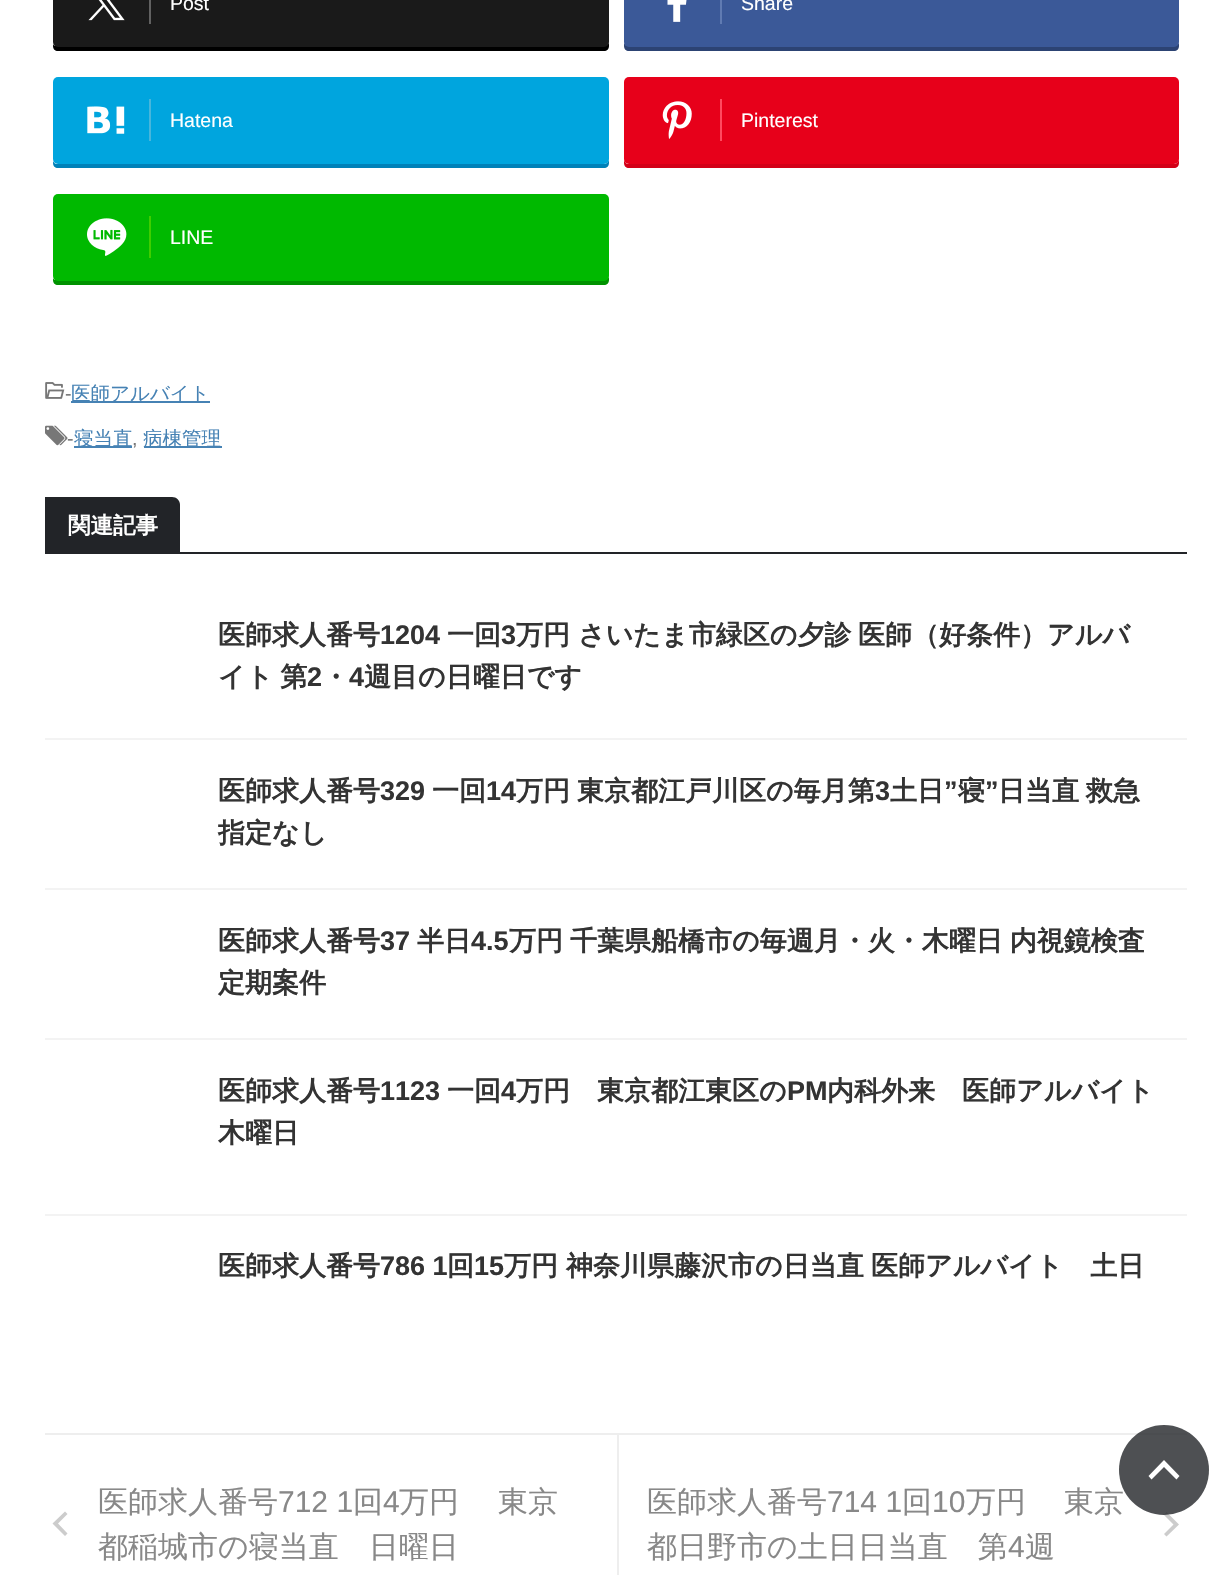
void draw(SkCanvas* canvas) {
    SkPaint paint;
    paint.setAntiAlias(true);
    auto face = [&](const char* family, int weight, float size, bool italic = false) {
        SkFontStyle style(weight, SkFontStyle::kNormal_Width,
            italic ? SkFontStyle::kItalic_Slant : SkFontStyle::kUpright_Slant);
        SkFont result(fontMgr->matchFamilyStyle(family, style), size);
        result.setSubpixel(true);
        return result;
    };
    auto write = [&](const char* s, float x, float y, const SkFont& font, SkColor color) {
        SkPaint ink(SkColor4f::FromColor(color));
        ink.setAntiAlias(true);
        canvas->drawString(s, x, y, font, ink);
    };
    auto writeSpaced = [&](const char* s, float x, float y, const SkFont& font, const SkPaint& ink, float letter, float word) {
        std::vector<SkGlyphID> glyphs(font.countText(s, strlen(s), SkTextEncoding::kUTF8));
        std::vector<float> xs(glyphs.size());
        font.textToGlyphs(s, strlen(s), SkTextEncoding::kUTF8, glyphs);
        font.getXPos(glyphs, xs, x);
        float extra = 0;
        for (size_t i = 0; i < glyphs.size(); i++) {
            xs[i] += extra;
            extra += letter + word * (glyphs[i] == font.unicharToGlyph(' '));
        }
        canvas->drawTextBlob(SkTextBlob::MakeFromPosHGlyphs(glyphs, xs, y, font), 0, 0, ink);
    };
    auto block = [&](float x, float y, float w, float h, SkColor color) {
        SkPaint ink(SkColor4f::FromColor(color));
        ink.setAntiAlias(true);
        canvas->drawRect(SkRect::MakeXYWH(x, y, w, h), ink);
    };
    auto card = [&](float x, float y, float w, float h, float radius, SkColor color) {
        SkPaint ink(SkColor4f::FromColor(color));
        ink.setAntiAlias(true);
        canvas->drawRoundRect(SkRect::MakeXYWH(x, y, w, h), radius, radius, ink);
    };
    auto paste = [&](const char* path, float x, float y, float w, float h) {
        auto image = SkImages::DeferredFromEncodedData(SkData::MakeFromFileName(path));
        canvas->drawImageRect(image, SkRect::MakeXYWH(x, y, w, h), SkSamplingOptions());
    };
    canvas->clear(SK_ColorWHITE);
    paint.setColor(SK_ColorBLACK);
    canvas->drawPath(SkPathBuilder().moveTo(53, 44).lineTo(53, 46).cubicTo(53, 49, 55, 51, 58, 51).lineTo(604, 51).cubicTo(607, 51, 609, 49, 609, 46).lineTo(609, 42).cubicTo(609, 44, 607, 46, 604, 46).lineTo(57, 46).cubicTo(55, 46, 54, 46, 53, 44).close().detach(), paint);
    card(53, -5, 556, 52, 5, SkColorSetRGB(26, 26, 26));
    block(149, 0, 2, 24, SkColorSetRGB(97, 97, 97));
    paste("pic1.png", 88, 0, 37, 21);
    auto kFont1 = face("Liberation Sans", 400, 19.5f);
    write("Post", 170, 10, kFont1, SK_ColorWHITE);
    paint.setColor(SkColorSetRGB(44, 67, 115));
    canvas->drawPath(SkPathBuilder().moveTo(624, 42).lineTo(624, 46).cubicTo(624, 49, 626, 51, 629, 51).lineTo(1174, 51).cubicTo(1177, 51, 1179, 49, 1179, 46).lineTo(1179, 42).cubicTo(1179, 44, 1177, 46, 1174, 46).lineTo(628, 46).cubicTo(626, 46, 624, 44, 624, 42).close().detach(), paint);
    card(624, -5, 555, 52, 5, SkColorSetRGB(59, 89, 152));
    block(720, 0, 2, 24, SkColorSetRGB(96, 123, 178));
    paste("pic2.png", 667, 0, 20, 22);
    write("Share", 741, 10, kFont1, SK_ColorWHITE);
    paint.setColor(SkColorSetRGB(0, 129, 184));
    canvas->drawPath(SkPathBuilder().moveTo(53, 161).lineTo(53, 163).cubicTo(53, 166, 55, 168, 58, 168).lineTo(604, 168).cubicTo(607, 168, 609, 166, 609, 163).lineTo(609, 159).cubicTo(609, 161, 607, 164, 604, 164).lineTo(57, 164).cubicTo(55, 164, 54, 163, 53, 161).close().detach(), paint);
    card(53, 77, 556, 87, 5, SkColorSetRGB(0, 165, 222));
    block(149, 99, 2, 42, SkColorSetRGB(72, 182, 219));
    paste("pic3.png", 87, 106, 38, 28);
    write("Hatena", 170, 127, kFont1, SK_ColorWHITE);
    paint.setColor(SkColorSetRGB(211, 0, 24));
    canvas->drawPath(SkPathBuilder().moveTo(624, 159).lineTo(624, 163).cubicTo(624, 166, 626, 168, 629, 168).lineTo(1174, 168).cubicTo(1177, 168, 1179, 166, 1179, 163).lineTo(1179, 159).cubicTo(1179, 161, 1177, 164, 1174, 164).lineTo(628, 164).cubicTo(626, 164, 624, 161, 624, 159).close().detach(), paint);
    card(624, 77, 555, 87, 5, SkColorSetRGB(231, 0, 26));
    block(720, 99, 2, 42, SkColorSetRGB(255, 74, 95));
    paste("pic4.png", 662, 101, 30, 38);
    write("Pinterest", 741, 127, kFont1, SK_ColorWHITE);
    paint.setColor(SkColorSetRGB(0, 146, 0));
    canvas->drawPath(SkPathBuilder().moveTo(53, 278).lineTo(53, 280).cubicTo(53, 283, 55, 285, 58, 285).lineTo(604, 285).cubicTo(607, 285, 609, 283, 609, 280).lineTo(609, 276).cubicTo(609, 278, 607, 280, 604, 280).lineTo(57, 280).cubicTo(55, 280, 54, 280, 53, 278).close().detach(), paint);
    card(53, 194, 556, 87, 5, SkColorSetRGB(0, 185, 0));
    block(149, 216, 2, 42, SkColorSetRGB(63, 205, 0));
    paste("pic5.png", 87, 218, 40, 38);
    write("LINE", 170, 244, kFont1, SK_ColorWHITE);
    paste("pic6.png", 45, 382, 20, 17);
    write("-", 65, 400, kFont1, SkColorSetRGB(119, 119, 119));
    block(71, 401, 139, 2, SkColorSetRGB(70, 130, 180));
    auto kFont2 = face("WenQuanYi Zen Hei", 500, 19.5f);
    write("医師アルバイト", 71, 400, kFont2, SkColorSetRGB(70, 130, 180));
    paste("pic7.png", 45, 425, 23, 21);
    write("-", 67, 445, kFont1, SkColorSetRGB(119, 119, 119));
    block(74, 446, 58, 2, SkColorSetRGB(70, 130, 180));
    write("寝当直", 74, 445, kFont2, SkColorSetRGB(70, 130, 180));
    block(144, 446, 78, 2, SkColorSetRGB(70, 130, 180));
    write("病棟管理", 143, 445, kFont2, SkColorSetRGB(70, 130, 180));
    write(",", 132, 445, kFont1, SkColorSetRGB(119, 119, 119));
    block(45, 552, 1142, 2, SkColorSetRGB(34, 36, 40));
    paint.setColor(SkColorSetRGB(34, 36, 40));
    canvas->drawPath(SkPathBuilder().moveTo(45, 497).lineTo(172, 497).cubicTo(176.5f, 497, 180, 500.5f, 180, 505).lineTo(180, 552).lineTo(45, 552).close().detach(), paint);
    auto kFont3 = face("WenQuanYi Zen Hei", 700, 22.5f);
    write("関連記事", 68, 533, kFont3, SK_ColorWHITE);
    block(45, 738, 1142, 2, SkColorSetRGB(243, 243, 243));
    auto kFont4 = face("WenQuanYi Zen Hei", 700, 27);
    write("医師求人番号", 218, 644, kFont4, SkColorSetRGB(51, 51, 51));
    auto kFont5 = face("Liberation Sans", 700, 27);
    write("1204", 380, 644, kFont5, SkColorSetRGB(51, 51, 51));
    write("一回", 447, 644, kFont4, SkColorSetRGB(51, 51, 51));
    write("3", 501, 644, kFont5, SkColorSetRGB(51, 51, 51));
    write("万円 さいたま市緑区の夕診", 516, 644, kFont4, SkColorSetRGB(51, 51, 51));
    write("医師（好条件）アルバ", 858, 644, kFont4, SkColorSetRGB(51, 51, 51));
    paint.setColor(SkColorSetRGB(51, 51, 51));
    writeSpaced("イト 第", 218, 686, kFont4, paint, 0, -1);
    write("2", 307, 686, kFont5, SkColorSetRGB(51, 51, 51));
    write("・", 322, 686, kFont4, SkColorSetRGB(51, 51, 51));
    write("4", 349, 686, kFont5, SkColorSetRGB(51, 51, 51));
    write("週目の日曜日です", 364, 686, kFont4, SkColorSetRGB(51, 51, 51));
    block(45, 888, 1142, 2, SkColorSetRGB(243, 243, 243));
    write("医師求人番号", 218, 800, kFont4, SkColorSetRGB(51, 51, 51));
    write("329", 380, 800, kFont5, SkColorSetRGB(51, 51, 51));
    write("一回", 432, 800, kFont4, SkColorSetRGB(51, 51, 51));
    write("14", 486, 800, kFont5, SkColorSetRGB(51, 51, 51));
    writeSpaced("万円 東京都江戸川区の毎月第", 516, 800, kFont4, paint, 0, -1);
    write("3", 875, 800, kFont5, SkColorSetRGB(51, 51, 51));
    write("土日", 890, 800, kFont4, SkColorSetRGB(51, 51, 51));
    write("”", 944, 800, kFont5, SkColorSetRGB(51, 51, 51));
    write("寝", 958, 800, kFont4, SkColorSetRGB(51, 51, 51));
    write("”", 985, 800, kFont5, SkColorSetRGB(51, 51, 51));
    writeSpaced("日当直 救急", 998, 800, kFont4, paint, 0, -1);
    write("指定なし", 218, 842, kFont4, SkColorSetRGB(51, 51, 51));
    block(45, 1038, 1142, 2, SkColorSetRGB(243, 243, 243));
    write("医師求人番号", 218, 950, kFont4, SkColorSetRGB(51, 51, 51));
    write("37", 380, 950, kFont5, SkColorSetRGB(51, 51, 51));
    write("半日", 417, 950, kFont4, SkColorSetRGB(51, 51, 51));
    write("4.5", 471, 950, kFont5, SkColorSetRGB(51, 51, 51));
    writeSpaced("万円 千葉県船橋市の毎週月・火・木曜日 内視鏡検査", 509, 950, kFont4, paint, 0, -1);
    write("定期案件", 218, 992, kFont4, SkColorSetRGB(51, 51, 51));
    block(45, 1214, 1142, 2, SkColorSetRGB(243, 243, 243));
    write("医師求人番号", 218, 1100, kFont4, SkColorSetRGB(51, 51, 51));
    write("1123", 380, 1100, kFont5, SkColorSetRGB(51, 51, 51));
    write("一回", 447, 1100, kFont4, SkColorSetRGB(51, 51, 51));
    write("4", 501, 1100, kFont5, SkColorSetRGB(51, 51, 51));
    write("万円　東京都江東区の", 516, 1100, kFont4, SkColorSetRGB(51, 51, 51));
    write("PM", 787, 1100, kFont5, SkColorSetRGB(51, 51, 51));
    write("内科外来　医師アルバイト", 827, 1100, kFont4, SkColorSetRGB(51, 51, 51));
    write("木曜日", 218, 1142, kFont4, SkColorSetRGB(51, 51, 51));
    write("医師求人番号", 218, 1275, kFont4, SkColorSetRGB(51, 51, 51));
    write("786 1", 380, 1275, kFont5, SkColorSetRGB(51, 51, 51));
    write("回", 447, 1275, kFont4, SkColorSetRGB(51, 51, 51));
    write("15", 474, 1275, kFont5, SkColorSetRGB(51, 51, 51));
    write("万円", 504, 1275, kFont4, SkColorSetRGB(51, 51, 51));
    write("神奈川県藤沢市の日当直", 566, 1275, kFont4, SkColorSetRGB(51, 51, 51));
    write("医師アルバイト　土日", 871, 1275, kFont4, SkColorSetRGB(51, 51, 51));
    block(45, 1433, 1142, 2, SkColorSetRGB(238, 238, 238));
    paint.setColor(SkColorSetRGB(204, 204, 204));
    canvas->drawPath(SkPathBuilder().moveTo(58, 1523.5f).lineTo(67.5f, 1533.5f).lineTo(65, 1536).lineTo(52.5f, 1523.5f).lineTo(65, 1511.5f).lineTo(67.5f, 1514).close().detach(), paint);
    auto kFont6 = face("WenQuanYi Zen Hei", 500, 30);
    write("医師求人番号", 98, 1512, kFont6, SkColorSetRGB(136, 136, 136));
    auto kFont7 = face("Liberation Sans", 400, 30);
    write("712 1", 278, 1512, kFont7, SkColorSetRGB(136, 136, 136));
    write("回", 353, 1512, kFont6, SkColorSetRGB(136, 136, 136));
    write("4", 383, 1512, kFont7, SkColorSetRGB(136, 136, 136));
    write("万円", 399, 1512, kFont6, SkColorSetRGB(136, 136, 136));
    write("東京", 498, 1512, kFont6, SkColorSetRGB(136, 136, 136));
    write("都稲城市の寝当直　日曜日", 98, 1557, kFont6, SkColorSetRGB(136, 136, 136));
    block(617, 1434, 2, 141, SkColorSetRGB(238, 238, 238));
    write("医師求人番号", 647, 1512, kFont6, SkColorSetRGB(136, 136, 136));
    write("714 1", 827, 1512, kFont7, SkColorSetRGB(136, 136, 136));
    write("回", 902, 1512, kFont6, SkColorSetRGB(136, 136, 136));
    write("10", 932, 1512, kFont7, SkColorSetRGB(136, 136, 136));
    write("万円", 966, 1512, kFont6, SkColorSetRGB(136, 136, 136));
    write("東京", 1064, 1512, kFont6, SkColorSetRGB(136, 136, 136));
    write("都日野市の土日日当直　第", 647, 1557, kFont6, SkColorSetRGB(136, 136, 136));
    write("4", 1008, 1557, kFont7, SkColorSetRGB(136, 136, 136));
    write("週", 1025, 1557, kFont6, SkColorSetRGB(136, 136, 136));
    canvas->drawPath(SkPathBuilder().moveTo(1173.5f, 1524.5f).lineTo(1164, 1515).lineTo(1166.5f, 1512).lineTo(1179, 1524.5f).lineTo(1166.5f, 1536.5f).lineTo(1164, 1534).close().detach(), paint);
    paint.setColor(SkColorSetARGB(204, 34, 36, 40));
    canvas->drawCircle(1164, 1470, 45, paint);
    paint.setColor(SK_ColorWHITE);
    canvas->drawPath(SkPathBuilder().moveTo(1164, 1467).lineTo(1151.5f, 1479.5f).lineTo(1148.5f, 1476).lineTo(1164, 1460).lineTo(1179.5f, 1476).lineTo(1176.5f, 1479.5f).close().detach(), paint);
}
